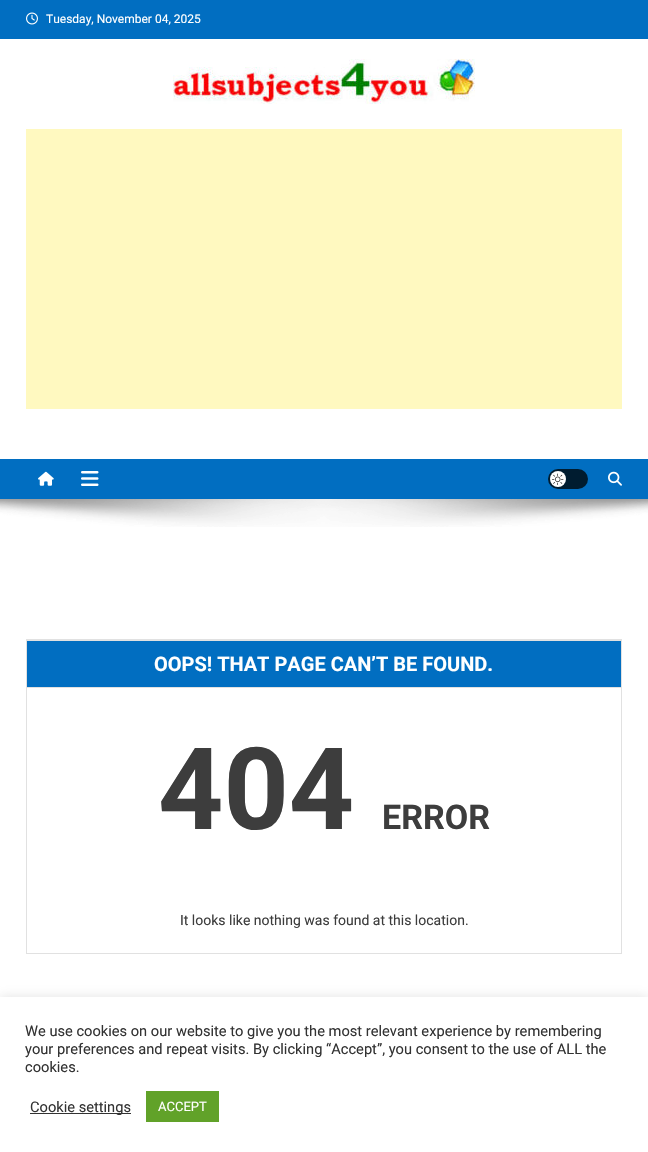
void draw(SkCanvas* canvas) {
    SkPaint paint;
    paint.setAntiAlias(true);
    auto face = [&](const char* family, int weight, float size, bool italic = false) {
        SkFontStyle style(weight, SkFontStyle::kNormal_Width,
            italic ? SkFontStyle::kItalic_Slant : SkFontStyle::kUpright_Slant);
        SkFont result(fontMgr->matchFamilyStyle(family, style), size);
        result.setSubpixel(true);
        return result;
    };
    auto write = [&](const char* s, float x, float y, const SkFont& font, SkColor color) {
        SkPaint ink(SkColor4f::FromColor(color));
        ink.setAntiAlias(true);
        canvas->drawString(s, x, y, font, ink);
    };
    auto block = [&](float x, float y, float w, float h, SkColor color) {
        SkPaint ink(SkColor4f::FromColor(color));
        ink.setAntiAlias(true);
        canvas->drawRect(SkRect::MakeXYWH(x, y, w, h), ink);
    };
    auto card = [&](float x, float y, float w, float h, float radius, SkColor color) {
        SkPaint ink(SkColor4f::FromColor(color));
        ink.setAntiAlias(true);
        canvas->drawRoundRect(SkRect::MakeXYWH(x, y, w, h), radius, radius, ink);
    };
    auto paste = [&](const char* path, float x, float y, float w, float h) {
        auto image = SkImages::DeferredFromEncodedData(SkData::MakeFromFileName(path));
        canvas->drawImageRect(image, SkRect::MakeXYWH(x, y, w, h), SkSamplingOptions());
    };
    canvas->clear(SK_ColorWHITE);
    block(0, 0, 648, 39, SkColorSetRGB(1, 110, 193));
    paste("pic1.png", 26, 12, 12, 13);
    auto kFont1 = face("Roboto", 400, 12);
    write("Tuesday, November 04, 2025", 46, 23, kFont1, SK_ColorWHITE);
    paste("pic2.png", 173, 59, 302, 45);
    block(26, 129, 596, 280, SkColorSetRGB(255, 249, 192));
    block(0, 459, 648, 40, SkColorSetRGB(1, 110, 193));
    paste("pic3.png", 38, 471, 16, 15);
    paste("pic4.png", 81, 471, 18, 15);
    card(548, 469, 40, 20, 10, SkColorSetRGB(0, 28, 48));
    paint.setColor(SK_ColorWHITE);
    canvas->drawCircle(558, 479, 8, paint);
    paste("pic5.png", 552, 473, 12, 12);
    paste("pic6.png", 608, 471, 14, 15);
    paste("pic7.png", 0, 499, 648, 28);
    paint.setStyle(SkPaint::kStroke_Style);
    paint.setStrokeWidth(1);
    paint.setColor(SkColorSetRGB(225, 225, 225));
    canvas->drawRect(SkRect::MakeXYWH(26.5f, 639.5f, 595, 314), paint);
    block(27, 641, 594, 46, SkColorSetRGB(1, 110, 193));
    block(27, 640, 594, 1, SkColorSetRGB(225, 225, 225));
    block(27, 687, 594, 1, SkColorSetRGB(225, 225, 225));
    auto kFont2 = face("Roboto", 700, 20);
    write("OOPS! THAT PAGE CAN’T BE FOUND.", 154, 671, kFont2, SK_ColorWHITE);
    auto kFont3 = face("Roboto", 700, 114);
    write("404", 158, 829, kFont3, SkColorSetRGB(61, 61, 61));
    auto kFont4 = face("Roboto", 700, 34);
    write("ERROR", 382, 829, kFont4, SkColorSetRGB(61, 61, 61));
    auto kFont5 = face("Roboto", 400, 14);
    write("It looks like nothing was found at this location.", 180, 925, kFont5, SkColorSetRGB(61, 61, 61));
    paint.setStyle(SkPaint::kFill_Style);
    paint.setColor(SkColorSetARGB(77, 172, 171, 171));
    paint.setMaskFilter(SkMaskFilter::MakeBlur(kNormal_SkBlurStyle, 5));
    canvas->drawRect(SkRect::MakeXYWH(0, 996, 648, 155), paint);
    paint.setMaskFilter(nullptr);
    block(0, 997, 648, 155, SK_ColorWHITE);
    auto kFont6 = face("Roboto", 400, 14.65f);
    write("We use cookies on our website to give you the most relevant experience by remembering", 25, 1036, kFont6, SkColorSetRGB(51, 51, 51));
    write("your preferences and repeat visits. By clicking “Accept”, you consent to the use of ALL the", 25, 1054, kFont6, SkColorSetRGB(51, 51, 51));
    write("cookies.", 25, 1072, kFont6, SkColorSetRGB(51, 51, 51));
    block(30, 1113, 101, 1, SkColorSetRGB(51, 51, 51));
    write("Cookie settings", 30, 1112, kFont6, SkColorSetRGB(51, 51, 51));
    block(146, 1091, 73, 31, SkColorSetRGB(97, 162, 41));
    auto kFont7 = face("Roboto", 400, 13);
    write("ACCEPT", 158, 1111, kFont7, SK_ColorWHITE);
}
